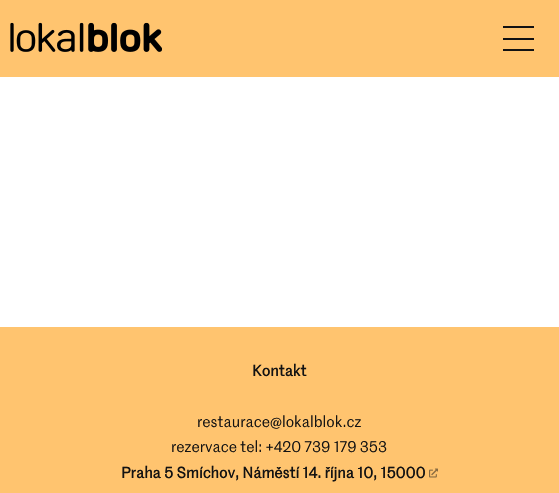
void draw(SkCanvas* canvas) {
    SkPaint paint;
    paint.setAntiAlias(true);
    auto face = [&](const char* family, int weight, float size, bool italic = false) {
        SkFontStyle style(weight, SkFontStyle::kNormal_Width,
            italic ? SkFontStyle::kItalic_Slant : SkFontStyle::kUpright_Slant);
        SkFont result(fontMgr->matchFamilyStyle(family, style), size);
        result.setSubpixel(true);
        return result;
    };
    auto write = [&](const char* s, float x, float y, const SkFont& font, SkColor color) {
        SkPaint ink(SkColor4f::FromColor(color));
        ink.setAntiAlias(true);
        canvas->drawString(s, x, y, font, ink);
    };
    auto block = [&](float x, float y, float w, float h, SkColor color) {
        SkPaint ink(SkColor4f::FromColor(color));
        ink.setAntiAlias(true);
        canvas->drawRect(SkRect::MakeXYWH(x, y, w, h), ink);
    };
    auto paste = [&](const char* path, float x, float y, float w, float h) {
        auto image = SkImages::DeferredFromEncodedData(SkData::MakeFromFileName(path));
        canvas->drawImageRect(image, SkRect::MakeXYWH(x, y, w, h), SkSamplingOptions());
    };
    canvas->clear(SK_ColorWHITE);
    block(0, 0, 559, 77, SkColorSetRGB(255, 196, 111));
    paste("pic1.png", 10, 22, 152, 30);
    block(503, 26, 31, 2, SkColorSetRGB(18, 18, 18));
    block(503, 38, 31, 2, SkColorSetRGB(18, 18, 18));
    block(503, 49, 31, 2, SkColorSetRGB(18, 18, 18));
    block(0, 327, 559, 166, SkColorSetRGB(255, 196, 111));
    auto kFont1 = face("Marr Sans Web", 700, 15);
    write("Kontakt", 252, 376, kFont1, SkColorSetRGB(18, 18, 18));
    auto kFont2 = face("Marr Sans Web", 400, 15);
    write("restaurace@lokalblok.cz", 197, 427, kFont2, SkColorSetRGB(18, 18, 18));
    write("rezervace tel: +420 739 179 353", 171, 452, kFont2, SkColorSetRGB(18, 18, 18));
    write("Praha 5 Smíchov, Náměstí 14. října 10, 15000", 121, 478, kFont1, SkColorSetRGB(18, 18, 18));
    paste("pic2.png", 429, 468, 9, 10);
}
